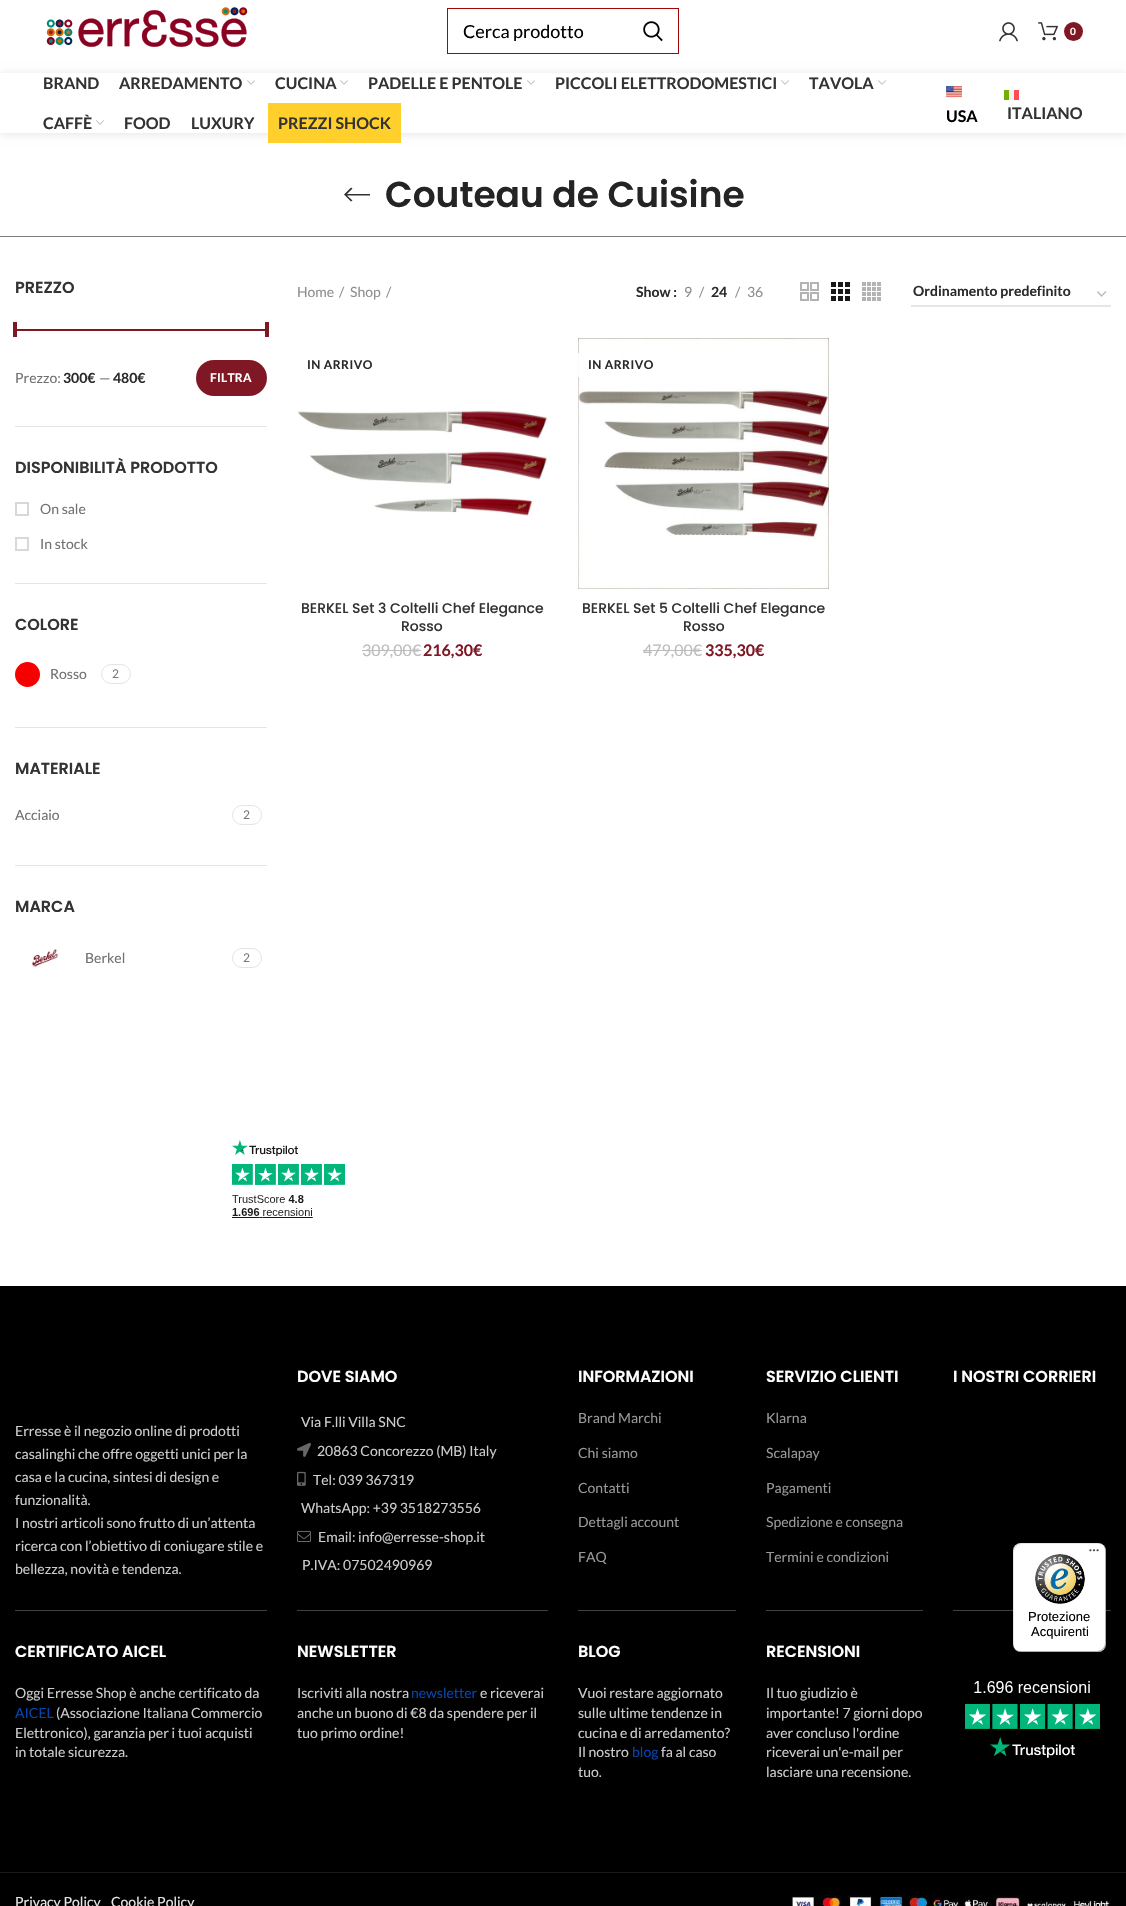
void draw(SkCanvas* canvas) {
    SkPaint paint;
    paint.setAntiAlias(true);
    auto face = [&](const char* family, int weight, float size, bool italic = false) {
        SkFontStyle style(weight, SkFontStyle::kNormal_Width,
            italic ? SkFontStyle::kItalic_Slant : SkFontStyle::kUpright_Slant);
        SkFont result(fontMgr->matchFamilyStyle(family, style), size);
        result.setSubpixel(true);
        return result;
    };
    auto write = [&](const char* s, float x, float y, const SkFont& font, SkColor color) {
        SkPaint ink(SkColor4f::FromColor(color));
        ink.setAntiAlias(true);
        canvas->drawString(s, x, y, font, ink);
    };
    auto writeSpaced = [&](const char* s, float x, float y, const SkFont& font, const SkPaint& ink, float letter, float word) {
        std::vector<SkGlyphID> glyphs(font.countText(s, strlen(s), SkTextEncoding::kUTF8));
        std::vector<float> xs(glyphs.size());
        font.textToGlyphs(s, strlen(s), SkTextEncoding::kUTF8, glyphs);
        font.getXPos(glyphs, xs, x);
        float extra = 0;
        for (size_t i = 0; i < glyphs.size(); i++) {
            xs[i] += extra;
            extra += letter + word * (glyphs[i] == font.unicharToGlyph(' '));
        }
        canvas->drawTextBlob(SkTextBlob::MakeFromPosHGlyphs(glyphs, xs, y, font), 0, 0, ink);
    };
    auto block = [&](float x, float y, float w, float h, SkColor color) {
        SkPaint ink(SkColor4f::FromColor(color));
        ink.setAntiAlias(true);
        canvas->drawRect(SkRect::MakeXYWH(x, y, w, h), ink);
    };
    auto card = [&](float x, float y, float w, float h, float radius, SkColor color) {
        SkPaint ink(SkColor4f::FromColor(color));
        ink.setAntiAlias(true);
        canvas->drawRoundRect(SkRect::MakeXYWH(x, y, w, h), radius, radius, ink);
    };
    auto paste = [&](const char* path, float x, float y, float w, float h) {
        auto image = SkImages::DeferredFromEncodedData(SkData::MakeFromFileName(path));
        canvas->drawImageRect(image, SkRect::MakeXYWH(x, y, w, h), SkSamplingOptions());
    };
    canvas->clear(SK_ColorWHITE);
    paste("pic1.png", 46, 7, 202, 40);
    paint.setStyle(SkPaint::kStroke_Style);
    paint.setStrokeWidth(1);
    paint.setColor(SkColorSetRGB(162, 5, 5));
    canvas->drawRect(SkRect::MakeXYWH(447.5f, 8.5f, 231, 45), paint);
    auto kFont1 = face("Lato", 400, 18);
    write("Cerca prodotto", 463, 38, kFont1, SK_ColorBLACK);
    paste("pic2.png", 643, 21, 20, 21);
    paste("pic3.png", 999, 22, 19, 20);
    paste("pic4.png", 1038, 22, 20, 19);
    paint.setStyle(SkPaint::kFill_Style);
    paint.setColor(SkColorSetRGB(127, 23, 37));
    canvas->drawCircle(1073.5f, 31.5f, 9.5f, paint);
    auto kFont2 = face("Lato", 700, 10);
    write("0", 1070, 35, kFont2, SK_ColorWHITE);
    canvas->save();
    canvas->clipPath(SkPathBuilder(SkPathFillType::kEvenOdd).moveTo(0, 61).lineTo(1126, 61).lineTo(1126, 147).lineTo(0, 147).close().moveTo(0, 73).lineTo(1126, 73).lineTo(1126, 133).lineTo(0, 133).close().detach(), true);
    paint.setColor(SkColorSetARGB(26, 0, 0, 0));
    paint.setMaskFilter(SkMaskFilter::MakeBlur(kNormal_SkBlurStyle, 4));
    canvas->drawRect(SkRect::MakeXYWH(0, 74, 1126, 60), paint);
    paint.setMaskFilter(nullptr);
    canvas->restore();
    auto kFont3 = face("Lato", 700, 16);
    write("BRAND", 43, 89, kFont3, SkColorSetRGB(51, 51, 51));
    write("ARREDAMENTO", 119, 89, kFont3, SkColorSetRGB(51, 51, 51));
    paste("pic5.png", 247, 80, 8, 5);
    write("CUCINA", 275, 89, kFont3, SkColorSetRGB(51, 51, 51));
    paste("pic5.png", 340, 80, 8, 5);
    write("PADELLE E PENTOLE", 368, 89, kFont3, SkColorSetRGB(51, 51, 51));
    paste("pic5.png", 527, 80, 8, 5);
    write("PICCOLI ELETTRODOMESTICI", 555, 89, kFont3, SkColorSetRGB(51, 51, 51));
    paste("pic5.png", 781, 80, 8, 5);
    write("TAVOLA", 809, 89, kFont3, SkColorSetRGB(51, 51, 51));
    paste("pic5.png", 878, 80, 8, 5);
    write("CAFFÈ", 43, 129, kFont3, SkColorSetRGB(51, 51, 51));
    paste("pic5.png", 96, 120, 8, 5);
    write("FOOD", 124, 129, kFont3, SkColorSetRGB(51, 51, 51));
    write("LUXURY", 191, 129, kFont3, SkColorSetRGB(51, 51, 51));
    block(268, 103, 133, 40, SkColorSetRGB(255, 208, 43));
    write("PREZZI SHOCK", 278, 129, kFont3, SkColorSetRGB(51, 51, 51));
    paste("pic6.png", 946, 86, 16, 12);
    write("USA", 946, 122, kFont3, SK_ColorBLACK);
    block(1004, 90, 5, 10, SkColorSetRGB(115, 175, 0));
    block(1009, 90, 5, 10, SkColorSetRGB(240, 240, 240));
    block(1014, 90, 5, 10, SkColorSetRGB(255, 75, 85));
    write("ITALIANO", 1007, 119, kFont3, SkColorSetRGB(51, 51, 51));
    block(0, 236, 1126, 1, SkColorSetRGB(128, 128, 128));
    paint.setColor(SkColorSetRGB(51, 51, 51));
    canvas->drawPath(SkPathBuilder().moveTo(370, 194).lineTo(370, 195.5f).lineTo(347, 195.5f).lineTo(352.5f, 200.5f).lineTo(351, 201.5f).lineTo(344, 194.5f).lineTo(351, 187.5f).lineTo(352.5f, 188.5f).lineTo(347, 194).close().detach(), paint);
    auto kFont4 = face("Poppins", 600, 36);
    write("Couteau de Cuisine", 385, 207, kFont4, SkColorSetRGB(36, 36, 36));
    block(15, 426, 252, 1, SkColorSetRGB(228, 228, 228));
    auto kFont5 = face("Poppins", 600, 16);
    write("PREZZO", 15, 293, kFont5, SkColorSetRGB(51, 51, 51));
    block(15, 329, 252, 2, SkColorSetRGB(127, 23, 37));
    block(13, 322, 4, 15, SkColorSetRGB(127, 23, 37));
    block(265, 322, 4, 15, SkColorSetRGB(127, 23, 37));
    auto kFont6 = face("Lato", 400, 14);
    write("Prezzo:", 15, 383, kFont6, SkColorSetRGB(113, 113, 113));
    auto kFont7 = face("Lato", 700, 14);
    write("300€", 63, 383, kFont7, SkColorSetRGB(45, 42, 42));
    write("—", 99, 383, kFont6, SkColorSetRGB(113, 113, 113));
    write("480€", 113, 383, kFont7, SkColorSetRGB(45, 42, 42));
    card(196, 360, 71, 36, 18, SkColorSetRGB(127, 23, 37));
    auto kFont8 = face("Lato", 700, 12);
    paint.setColor(SK_ColorWHITE);
    writeSpaced("FILTRA", 210, 382, kFont8, paint, 0.25f, 0);
    block(15, 583, 252, 1, SkColorSetRGB(228, 228, 228));
    write("DISPONIBILITÀ PRODOTTO", 15, 473, kFont5, SkColorSetRGB(51, 51, 51));
    paint.setStyle(SkPaint::kStroke_Style);
    paint.setStrokeWidth(2);
    paint.setColor(SkColorSetRGB(216, 216, 216));
    canvas->drawRect(SkRect::MakeXYWH(16, 503, 12, 12), paint);
    write("On sale", 40, 514, kFont6, SkColorSetRGB(113, 113, 113));
    canvas->drawRect(SkRect::MakeXYWH(16, 538, 12, 12), paint);
    write("In stock", 40, 549, kFont6, SkColorSetRGB(113, 113, 113));
    block(15, 727, 252, 1, SkColorSetRGB(228, 228, 228));
    write("COLORE", 15, 630, kFont5, SkColorSetRGB(51, 51, 51));
    paint.setStyle(SkPaint::kFill_Style);
    paint.setColor(SkColorSetRGB(247, 0, 0));
    canvas->drawCircle(27.5f, 674.5f, 12.5f, paint);
    write("Rosso", 50, 679, kFont6, SkColorSetRGB(113, 113, 113));
    paint.setStyle(SkPaint::kStroke_Style);
    paint.setStrokeWidth(1);
    paint.setColor(SkColorSetRGB(228, 228, 228));
    canvas->drawRoundRect(SkRect::MakeXYWH(101.5f, 664.5f, 29, 19), 9.5f, 9.5f, paint);
    auto kFont9 = face("Lato", 400, 12);
    write("2", 112, 678, kFont9, SkColorSetRGB(119, 119, 119));
    block(15, 865, 252, 1, SkColorSetRGB(228, 228, 228));
    write("MATERIALE", 15, 774, kFont5, SkColorSetRGB(51, 51, 51));
    write("Acciaio", 15, 820, kFont6, SkColorSetRGB(113, 113, 113));
    canvas->drawRoundRect(SkRect::MakeXYWH(232.5f, 805.5f, 29, 19), 9.5f, 9.5f, paint);
    write("2", 243, 819, kFont9, SkColorSetRGB(119, 119, 119));
    write("MARCA", 15, 912, kFont5, SkColorSetRGB(51, 51, 51));
    paste("pic7.png", 31, 949, 27, 18);
    write("Berkel", 85, 963, kFont6, SkColorSetRGB(113, 113, 113));
    canvas->drawRoundRect(SkRect::MakeXYWH(232.5f, 948.5f, 29, 19), 9.5f, 9.5f, paint);
    write("2", 243, 962, kFont9, SkColorSetRGB(119, 119, 119));
    write("Home", 297, 297, kFont6, SkColorSetRGB(142, 142, 142));
    write("/", 339, 297, kFont6, SkColorSetRGB(142, 142, 142));
    write("Shop", 350, 297, kFont6, SkColorSetRGB(142, 142, 142));
    write("/", 386, 297, kFont6, SkColorSetRGB(142, 142, 142));
    write("Show :", 636, 297, kFont7, SkColorSetRGB(45, 42, 42));
    write("9", 684, 297, kFont6, SkColorSetRGB(142, 142, 142));
    write("/", 699, 297, kFont6, SkColorSetRGB(142, 142, 142));
    write("24", 711, 297, kFont7, SkColorSetRGB(45, 42, 42));
    write("/", 735, 297, kFont6, SkColorSetRGB(142, 142, 142));
    write("36", 747, 297, kFont6, SkColorSetRGB(142, 142, 142));
    paste("pic8.png", 800, 282, 19, 19);
    paste("pic9.png", 831, 282, 19, 19);
    paste("pic10.png", 862, 282, 19, 19);
    paint.setStrokeWidth(1.4f);
    paint.setColor(SkColorSetRGB(187, 187, 187));
    canvas->drawPath(SkPathBuilder().moveTo(1097.5f, 291.5f).lineTo(1101.5f, 296).lineTo(1106, 291.5f).detach(), paint);
    block(911, 305, 200, 2, SkColorSetRGB(230, 230, 230));
    write("Ordinamento predefinito", 913, 296, kFont7, SkColorSetRGB(45, 42, 42));
    paint.setStyle(SkPaint::kFill_Style);
    paint.setColor(SkColorSetRGB(45, 42, 42));
    writeSpaced("IN ARRIVO", 307, 369, kFont8, paint, 0.5f, 0);
    paste("pic11.png", 297, 410, 251, 106);
    auto kFont10 = face("Poppins", 500, 14);
    write("BERKEL Set 3 Coltelli Chef Elegance", 301, 613, kFont10, SkColorSetRGB(51, 51, 51));
    write("Rosso", 401, 631, kFont10, SkColorSetRGB(51, 51, 51));
    auto kFont11 = face("Lato", 400, 16);
    write("309,00", 362, 656, kFont11, SkColorSetRGB(189, 189, 189));
    block(362, 650, 50, 1, SkColorSetRGB(189, 189, 189));
    write("€", 412, 656, kFont11, SkColorSetRGB(189, 189, 189));
    block(412, 650, 9, 1, SkColorSetRGB(189, 189, 189));
    write("216,30€", 423, 656, kFont3, SkColorSetRGB(127, 23, 37));
    paste("pic12.png", 578, 338, 251, 251);
    block(578, 353, 4, 24, SkColorSetARGB(230, 255, 255, 255));
    writeSpaced("IN ARRIVO", 588, 369, kFont8, paint, 0.5f, 0);
    write("BERKEL Set 5 Coltelli Chef Elegance", 582, 613, kFont10, SkColorSetRGB(51, 51, 51));
    write("Rosso", 683, 631, kFont10, SkColorSetRGB(51, 51, 51));
    write("479,00€", 643, 656, kFont11, SkColorSetRGB(189, 189, 189));
    block(643, 650, 59, 1, SkColorSetRGB(189, 189, 189));
    write("335,30€", 705, 656, kFont3, SkColorSetRGB(127, 23, 37));
    paste("pic13.png", 232, 1140, 113, 78);
    block(0, 1286, 1126, 620, SK_ColorBLACK);
    block(297, 1610, 251, 1, SkColorSetRGB(64, 64, 64));
    write("DOVE SIAMO", 297, 1382, kFont5, SK_ColorWHITE);
    write("Via F.lli Villa SNC", 301, 1427, kFont6, SkColorSetRGB(204, 204, 204));
    paste("pic14.png", 297, 1442, 14, 15);
    write("20863 Concorezzo (MB) Italy", 317, 1456, kFont6, SkColorSetRGB(204, 204, 204));
    paste("pic15.png", 297, 1471, 9, 15);
    write("Tel: 039 367319", 313, 1485, kFont6, SkColorSetRGB(204, 204, 204));
    write("WhatsApp: +39 3518273556", 301, 1513, kFont6, SkColorSetRGB(204, 204, 204));
    paste("pic16.png", 297, 1531, 14, 11);
    write("Email: info@erresse-shop.it", 318, 1542, kFont6, SkColorSetRGB(204, 204, 204));
    write("P.IVA: 07502490969", 302, 1570, kFont6, SkColorSetRGB(204, 204, 204));
    write("NEWSLETTER", 297, 1657, kFont5, SK_ColorWHITE);
    write("Iscriviti alla nostra", 297, 1698, kFont6, SkColorSetRGB(204, 204, 204));
    write("newsletter", 411, 1698, kFont6, SkColorSetRGB(6, 69, 173));
    write("e riceverai", 480, 1698, kFont6, SkColorSetRGB(204, 204, 204));
    write("anche un buono di €8 da spendere per il", 297, 1718, kFont6, SkColorSetRGB(204, 204, 204));
    write("tuo primo ordine!", 297, 1738, kFont6, SkColorSetRGB(204, 204, 204));
    block(578, 1610, 158, 1, SkColorSetRGB(64, 64, 64));
    write("INFORMAZIONI", 578, 1382, kFont5, SK_ColorWHITE);
    write("Brand Marchi", 578, 1423, kFont6, SkColorSetRGB(153, 153, 153));
    write("Chi siamo", 578, 1458, kFont6, SkColorSetRGB(153, 153, 153));
    write("Contatti", 578, 1493, kFont6, SkColorSetRGB(153, 153, 153));
    write("Dettagli account", 578, 1527, kFont6, SkColorSetRGB(153, 153, 153));
    write("FAQ", 578, 1562, kFont6, SkColorSetRGB(153, 153, 153));
    write("BLOG", 578, 1657, kFont5, SK_ColorWHITE);
    write("Vuoi restare aggiornato", 578, 1698, kFont6, SkColorSetRGB(204, 204, 204));
    write("sulle ultime tendenze in", 578, 1718, kFont6, SkColorSetRGB(204, 204, 204));
    write("cucina e di arredamento?", 578, 1738, kFont6, SkColorSetRGB(204, 204, 204));
    write("Il nostro", 578, 1757, kFont6, SkColorSetRGB(204, 204, 204));
    write("blog", 632, 1757, kFont6, SkColorSetRGB(6, 69, 173));
    write("fa al caso", 661, 1757, kFont6, SkColorSetRGB(204, 204, 204));
    write("tuo.", 578, 1777, kFont6, SkColorSetRGB(204, 204, 204));
    block(766, 1610, 157, 1, SkColorSetRGB(64, 64, 64));
    write("SERVIZIO CLIENTI", 766, 1382, kFont5, SK_ColorWHITE);
    write("Klarna", 766, 1423, kFont6, SkColorSetRGB(153, 153, 153));
    write("Scalapay", 766, 1458, kFont6, SkColorSetRGB(153, 153, 153));
    write("Pagamenti", 766, 1493, kFont6, SkColorSetRGB(153, 153, 153));
    write("Spedizione e consegna", 766, 1527, kFont6, SkColorSetRGB(153, 153, 153));
    write("Termini e condizioni", 766, 1562, kFont6, SkColorSetRGB(153, 153, 153));
    write("RECENSIONI", 766, 1657, kFont5, SK_ColorWHITE);
    write("Il tuo giudizio è", 766, 1698, kFont6, SkColorSetRGB(204, 204, 204));
    write("importante! 7 giorni dopo", 766, 1718, kFont6, SkColorSetRGB(204, 204, 204));
    write("aver concluso l'ordine", 766, 1738, kFont6, SkColorSetRGB(204, 204, 204));
    write("riceverai un'e-mail per", 766, 1757, kFont6, SkColorSetRGB(204, 204, 204));
    write("lasciare una recensione.", 766, 1777, kFont6, SkColorSetRGB(204, 204, 204));
    block(953, 1610, 158, 1, SkColorSetRGB(64, 64, 64));
    write("I NOSTRI CORRIERI", 953, 1382, kFont5, SK_ColorWHITE);
    paste("pic17.png", 965, 1681, 135, 77);
    block(15, 1610, 252, 1, SkColorSetRGB(64, 64, 64));
    write("Erresse è il negozio online di prodotti", 15, 1436, kFont6, SkColorSetRGB(204, 204, 204));
    write("casalinghi che offre oggetti unici per la", 15, 1459, kFont6, SkColorSetRGB(204, 204, 204));
    write("casa e la cucina, sintesi di design e", 15, 1482, kFont6, SkColorSetRGB(204, 204, 204));
    write("funzionalità.", 15, 1505, kFont6, SkColorSetRGB(204, 204, 204));
    write("I nostri articoli sono frutto di un’attenta", 15, 1528, kFont6, SkColorSetRGB(204, 204, 204));
    write("ricerca con l’obiettivo di coniugare stile e", 15, 1551, kFont6, SkColorSetRGB(204, 204, 204));
    write("bellezza, novità e tendenza.", 15, 1574, kFont6, SkColorSetRGB(204, 204, 204));
    write("CERTIFICATO AICEL", 15, 1657, kFont5, SK_ColorWHITE);
    write("Oggi Erresse Shop è anche certificato da", 15, 1698, kFont6, SkColorSetRGB(204, 204, 204));
    write("AICEL", 15, 1718, kFont6, SkColorSetRGB(6, 69, 173));
    write("(Associazione Italiana Commercio", 56, 1718, kFont6, SkColorSetRGB(204, 204, 204));
    write("Elettronico), garanzia per i tuoi acquisti", 15, 1738, kFont6, SkColorSetRGB(204, 204, 204));
    write("in totale sicurezza.", 15, 1757, kFont6, SkColorSetRGB(204, 204, 204));
    block(0, 1872, 1126, 1, SkColorSetRGB(26, 26, 26));
    write("Privacy Policy", 15, 1907, kFont6, SkColorSetRGB(230, 230, 230));
    write("Cookie Policy", 111, 1907, kFont6, SkColorSetRGB(230, 230, 230));
    paste("pic18.png", 791, 1895, 320, 11);
    card(1013, 1543, 93, 109, 8, SK_ColorWHITE);
    paint.setColor(SkColorSetARGB(26, 0, 0, 0));
    canvas->drawPath(SkPathBuilder().moveTo(1022, 1544).lineTo(1099, 1544).cubicTo(1101, 1544, 1103, 1545, 1105, 1547).cubicTo(1103, 1545, 1101, 1543, 1098, 1543).lineTo(1021, 1543).cubicTo(1017, 1543, 1013, 1547, 1013, 1551).lineTo(1013, 1644).cubicTo(1013, 1647, 1015, 1649, 1017, 1651).cubicTo(1015, 1649, 1014, 1647, 1014, 1645).lineTo(1014, 1552).cubicTo(1014, 1548, 1018, 1544, 1022, 1544).close().detach(), paint);
    paint.setColor(SkColorSetARGB(51, 0, 0, 0));
    canvas->drawPath(SkPathBuilder().moveTo(1014, 1648).cubicTo(1016, 1650, 1018, 1652, 1021, 1652).lineTo(1098, 1652).cubicTo(1102, 1652, 1106, 1648, 1106, 1644).lineTo(1106, 1551).cubicTo(1106, 1548, 1104, 1546, 1102, 1544).cubicTo(1104, 1546, 1105, 1548, 1105, 1550).lineTo(1105, 1643).cubicTo(1105, 1647, 1101, 1651, 1097, 1651).lineTo(1020, 1651).cubicTo(1018, 1651, 1016, 1650, 1014, 1648).close().detach(), paint);
    paint.setColor(SkColorSetARGB(51, 50, 50, 50));
    canvas->drawPath(SkPathBuilder().moveTo(1015, 1649).cubicTo(1016, 1651, 1019, 1652, 1021, 1652).lineTo(1098, 1652).cubicTo(1102, 1652, 1106, 1648, 1106, 1644).lineTo(1106, 1551).cubicTo(1106, 1549, 1105, 1546, 1103, 1545).cubicTo(1104, 1546, 1105, 1548, 1105, 1550).lineTo(1105, 1643).cubicTo(1105, 1648, 1102, 1651, 1097, 1651).lineTo(1020, 1651).cubicTo(1018, 1651, 1016, 1650, 1015, 1649).close().detach(), paint);
    paste("pic19.png", 1089, 1549, 10, 3);
    paint.setColor(SkColorSetARGB(77, 255, 255, 255));
    canvas->drawPath(SkPathBuilder().moveTo(1098, 1652).cubicTo(1102.5f, 1652, 1106, 1648.5f, 1106, 1644).cubicTo(1106, 1648, 1102, 1652, 1098, 1652).close().detach(), paint);
    paste("pic20.png", 1035, 1554, 50, 50);
    auto kFont12 = face("Liberation Sans", 400, 13);
    write("Protezione", 1028, 1621, kFont12, SK_ColorBLACK);
    write("Acquirenti", 1031, 1636, kFont12, SK_ColorBLACK);
}
